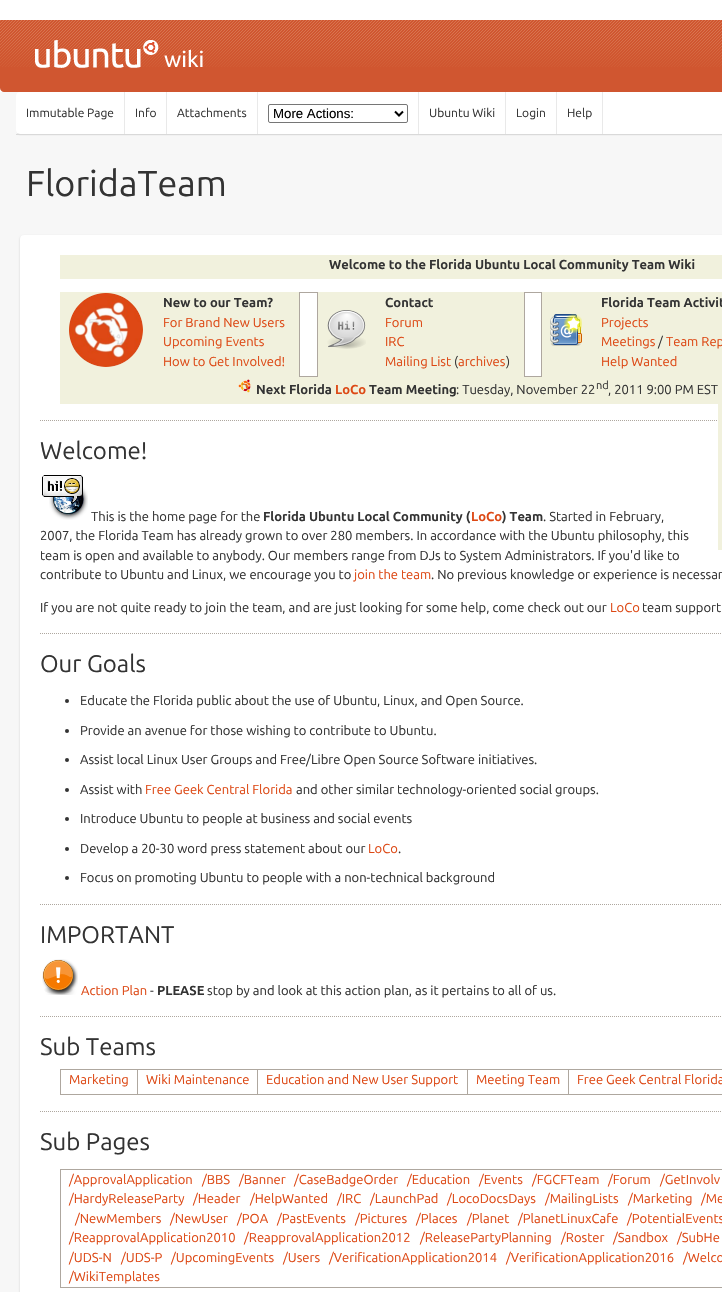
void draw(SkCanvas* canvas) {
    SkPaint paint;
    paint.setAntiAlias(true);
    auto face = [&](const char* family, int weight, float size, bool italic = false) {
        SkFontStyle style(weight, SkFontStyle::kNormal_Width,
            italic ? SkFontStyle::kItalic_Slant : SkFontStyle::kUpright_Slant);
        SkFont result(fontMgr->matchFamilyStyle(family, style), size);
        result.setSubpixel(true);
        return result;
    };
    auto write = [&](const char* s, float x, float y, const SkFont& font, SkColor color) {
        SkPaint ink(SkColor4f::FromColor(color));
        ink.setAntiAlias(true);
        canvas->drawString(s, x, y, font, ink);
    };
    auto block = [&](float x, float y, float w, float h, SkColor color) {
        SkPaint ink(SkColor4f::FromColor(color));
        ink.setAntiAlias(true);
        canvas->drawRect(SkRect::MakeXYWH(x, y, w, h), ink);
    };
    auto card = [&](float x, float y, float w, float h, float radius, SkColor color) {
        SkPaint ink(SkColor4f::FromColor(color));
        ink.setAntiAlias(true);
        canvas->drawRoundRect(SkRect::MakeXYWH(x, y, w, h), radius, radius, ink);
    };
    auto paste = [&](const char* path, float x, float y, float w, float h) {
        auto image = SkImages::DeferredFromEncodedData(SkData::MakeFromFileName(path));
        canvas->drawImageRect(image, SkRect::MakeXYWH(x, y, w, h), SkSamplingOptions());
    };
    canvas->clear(SkColorSetRGB(247, 247, 247));
    block(0, 0, 722, 92, SK_ColorWHITE);
    paint.setColor(SkColorSetRGB(208, 86, 48));
    canvas->drawPath(SkPathBuilder().moveTo(0, 20).lineTo(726, 20).lineTo(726, 88).cubicTo(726, 90, 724, 92, 722, 92).lineTo(4, 92).cubicTo(2, 92, 0, 90, 0, 88).close().detach(), paint);
    paste("pic1.png", 0, 20, 722, 47);
    paste("pic2.png", 35, 40, 168, 28);
    paint.setColor(SkColorSetRGB(187, 187, 187));
    paint.setMaskFilter(SkMaskFilter::MakeBlur(kNormal_SkBlurStyle, 0.5f));
    canvas->drawRoundRect(SkRect::MakeXYWH(17, 93, 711, 42), 4, 4, paint);
    paint.setMaskFilter(nullptr);
    card(16, 92, 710, 42, 4, SK_ColorWHITE);
    block(124, 92, 1, 42, SkColorSetRGB(233, 233, 233));
    auto kFont1 = face("Ubuntu", 400, 12);
    write("Immutable Page", 26, 117, kFont1, SkColorSetRGB(51, 51, 51));
    block(166, 92, 1, 42, SkColorSetRGB(233, 233, 233));
    write("Info", 135, 117, kFont1, SkColorSetRGB(51, 51, 51));
    block(257, 92, 1, 42, SkColorSetRGB(233, 233, 233));
    write("Attachments", 177, 117, kFont1, SkColorSetRGB(51, 51, 51));
    block(418, 92, 1, 42, SkColorSetRGB(233, 233, 233));
    paint.setStyle(SkPaint::kStroke_Style);
    paint.setStrokeWidth(1);
    paint.setColor(SkColorSetRGB(118, 118, 118));
    canvas->drawRoundRect(SkRect::MakeXYWH(268.5f, 104.5f, 139, 18), 1.5f, 1.5f, paint);
    paint.setStrokeWidth(2);
    paint.setColor(SK_ColorBLACK);
    canvas->drawPath(SkPathBuilder().moveTo(395, 111.5f).lineTo(399, 115.5f).lineTo(403, 111.5f).detach(), paint);
    auto kFont2 = face("Liberation Sans", 400, 13.25f);
    write("More Actions:", 273, 118, kFont2, SK_ColorBLACK);
    block(505, 92, 1, 42, SkColorSetRGB(233, 233, 233));
    write("Ubuntu Wiki", 429, 117, kFont1, SkColorSetRGB(51, 51, 51));
    block(556, 92, 1, 42, SkColorSetRGB(233, 233, 233));
    write("Login", 516, 117, kFont1, SkColorSetRGB(51, 51, 51));
    block(602, 92, 1, 42, SkColorSetRGB(233, 233, 233));
    write("Help", 567, 117, kFont1, SkColorSetRGB(51, 51, 51));
    block(16, 134, 706, 1, SkColorSetRGB(217, 217, 217));
    auto kFont3 = face("Ubuntu", 400, 36);
    write("FloridaTeam", 26, 196, kFont3, SkColorSetRGB(51, 51, 51));
    paint.setStyle(SkPaint::kFill_Style);
    paint.setColor(SkColorSetRGB(204, 204, 204));
    paint.setMaskFilter(SkMaskFilter::MakeBlur(kNormal_SkBlurStyle, 1));
    canvas->drawRoundRect(SkRect::MakeXYWH(20, 236, 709, 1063), 4, 4, paint);
    paint.setMaskFilter(nullptr);
    card(20, 235, 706, 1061, 4, SK_ColorWHITE);
    block(60, 255, 662, 24, SkColorSetRGB(241, 241, 221));
    auto kFont4 = face("Ubuntu", 700, 13);
    write("Welcome to the Florida Ubuntu Local Community Team Wiki", 329, 269, kFont4, SkColorSetRGB(51, 51, 51));
    block(60, 292, 239, 85, SkColorSetRGB(241, 241, 221));
    paste("pic3.png", 69, 293, 74, 74);
    block(299, 292, 19, 1, SkColorSetRGB(174, 167, 159));
    block(317, 292, 1, 85, SkColorSetRGB(174, 167, 159));
    block(299, 376, 19, 1, SkColorSetRGB(174, 167, 159));
    block(299, 292, 1, 85, SkColorSetRGB(174, 167, 159));
    block(318, 292, 206, 85, SkColorSetRGB(241, 241, 221));
    paste("pic4.png", 327, 310, 39, 39);
    block(524, 292, 18, 1, SkColorSetRGB(174, 167, 159));
    block(541, 292, 1, 85, SkColorSetRGB(174, 167, 159));
    block(524, 376, 18, 1, SkColorSetRGB(174, 167, 159));
    block(524, 292, 1, 85, SkColorSetRGB(174, 167, 159));
    block(542, 292, 180, 85, SkColorSetRGB(241, 241, 221));
    paste("pic5.png", 550, 314, 32, 32);
    write("New to our Team?", 163, 307, kFont4, SkColorSetRGB(51, 51, 51));
    auto kFont5 = face("Ubuntu", 400, 13);
    write("For Brand New Users", 163, 327, kFont5, SkColorSetRGB(221, 72, 20));
    write("Upcoming Events", 163, 346, kFont5, SkColorSetRGB(221, 72, 20));
    write("How to Get Involved!", 163, 366, kFont5, SkColorSetRGB(221, 72, 20));
    write("Contact", 385, 307, kFont4, SkColorSetRGB(51, 51, 51));
    write("Forum", 385, 327, kFont5, SkColorSetRGB(221, 72, 20));
    write("IRC", 385, 346, kFont5, SkColorSetRGB(221, 72, 20));
    write("Mailing List", 385, 366, kFont5, SkColorSetRGB(221, 72, 20));
    write("(", 454, 366, kFont5, SkColorSetRGB(51, 51, 51));
    write("archives", 458, 366, kFont5, SkColorSetRGB(221, 72, 20));
    write(")", 506, 366, kFont5, SkColorSetRGB(51, 51, 51));
    write("Florida Team Activit", 601, 307, kFont4, SkColorSetRGB(51, 51, 51));
    write("Projects", 601, 327, kFont5, SkColorSetRGB(221, 72, 20));
    write("Meetings", 601, 346, kFont5, SkColorSetRGB(221, 72, 20));
    write("/", 658, 346, kFont5, SkColorSetRGB(51, 51, 51));
    write("Team Rep", 666, 346, kFont5, SkColorSetRGB(221, 72, 20));
    write("Help Wanted", 601, 366, kFont5, SkColorSetRGB(221, 72, 20));
    block(60, 377, 662, 27, SkColorSetRGB(241, 241, 221));
    paste("pic6.png", 238, 379, 13, 14);
    write("Next Florida", 256, 394, kFont4, SkColorSetRGB(51, 51, 51));
    write("LoCo", 335, 394, kFont4, SkColorSetRGB(221, 72, 20));
    write("Team Meeting", 369, 394, kFont4, SkColorSetRGB(51, 51, 51));
    write(": Tuesday, November 22", 456, 394, kFont5, SkColorSetRGB(51, 51, 51));
    auto kFont6 = face("Ubuntu", 400, 11);
    write("nd", 596, 389, kFont6, SkColorSetRGB(51, 51, 51));
    write(", 2011 9:00 PM EST", 608, 394, kFont5, SkColorSetRGB(51, 51, 51));
    paint.setStyle(SkPaint::kStroke_Style);
    paint.setStrokeWidth(1);
    paint.setColor(SkColorSetRGB(174, 167, 159));
    paint.setPathEffect(SkDashPathEffect::Make({{1, 1}}, 0));
    canvas->drawPath(SkPathBuilder().moveTo(40, 420.5f).lineTo(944, 420.5f).detach(), paint);
    paint.setPathEffect(nullptr);
    auto kFont7 = face("Ubuntu", 400, 24);
    write("Welcome!", 40, 459, kFont7, SkColorSetRGB(51, 51, 51));
    block(718, 404, 4, 146, SkColorSetRGB(241, 241, 221));
    paste("pic7.png", 42, 475, 46, 45);
    write("This is the home page for the", 91, 521, kFont5, SkColorSetRGB(51, 51, 51));
    write("Florida Ubuntu Local Community (", 263, 521, kFont4, SkColorSetRGB(51, 51, 51));
    write("LoCo", 471, 521, kFont4, SkColorSetRGB(221, 72, 20));
    write(") Team", 502, 521, kFont4, SkColorSetRGB(51, 51, 51));
    write(". Started in February,", 543, 521, kFont5, SkColorSetRGB(51, 51, 51));
    write("2007, the Florida Team has already grown to over 280 members. In accordance with the Ubuntu philosophy, this", 40, 540, kFont5, SkColorSetRGB(51, 51, 51));
    write("team is open and available to anybody. Our members range from DJs to System Administrators. If you'd like to", 40, 560, kFont5, SkColorSetRGB(51, 51, 51));
    write("contribute to Ubuntu and Linux, we encourage you to", 40, 579, kFont5, SkColorSetRGB(51, 51, 51));
    write("join the team", 354, 579, kFont5, SkColorSetRGB(221, 72, 20));
    write(". No previous knowledge or experience is necessar", 431, 579, kFont5, SkColorSetRGB(51, 51, 51));
    write("If you are not quite ready to join the team, and are just looking for some help, come check out our", 40, 612, kFont5, SkColorSetRGB(51, 51, 51));
    write("LoCo", 610, 612, kFont5, SkColorSetRGB(221, 72, 20));
    write("team support", 642, 612, kFont5, SkColorSetRGB(51, 51, 51));
    paint.setPathEffect(SkDashPathEffect::Make({{1, 1}}, 0));
    canvas->drawPath(SkPathBuilder().moveTo(40, 633.5f).lineTo(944, 633.5f).detach(), paint);
    paint.setPathEffect(nullptr);
    write("Our Goals", 40, 672, kFont7, SkColorSetRGB(51, 51, 51));
    paint.setStyle(SkPaint::kFill_Style);
    paint.setColor(SkColorSetRGB(51, 51, 51));
    canvas->drawCircle(67, 701, 2, paint);
    write("Educate the Florida public about the use of Ubuntu, Linux, and Open Source.", 80, 705, kFont5, SkColorSetRGB(51, 51, 51));
    canvas->drawCircle(67, 731, 2, paint);
    write("Provide an avenue for those wishing to contribute to Ubuntu.", 80, 735, kFont5, SkColorSetRGB(51, 51, 51));
    canvas->drawCircle(67, 760, 2, paint);
    write("Assist local Linux User Groups and Free/Libre Open Source Software initiatives.", 80, 764, kFont5, SkColorSetRGB(51, 51, 51));
    canvas->drawCircle(67, 790, 2, paint);
    write("Assist with", 80, 794, kFont5, SkColorSetRGB(51, 51, 51));
    write("Free Geek Central Florida", 145, 794, kFont5, SkColorSetRGB(221, 72, 20));
    write("and other similar technology-oriented social groups.", 296, 794, kFont5, SkColorSetRGB(51, 51, 51));
    canvas->drawCircle(67, 819, 2, paint);
    write("Introduce Ubuntu to people at business and social events", 80, 823, kFont5, SkColorSetRGB(51, 51, 51));
    canvas->drawCircle(67, 849, 2, paint);
    write("Develop a 20-30 word press statement about our", 80, 853, kFont5, SkColorSetRGB(51, 51, 51));
    write("LoCo", 368, 853, kFont5, SkColorSetRGB(221, 72, 20));
    write(".", 398, 853, kFont5, SkColorSetRGB(51, 51, 51));
    canvas->drawCircle(67, 878, 2, paint);
    write("Focus on promoting Ubuntu to people with a non-technical background", 80, 882, kFont5, SkColorSetRGB(51, 51, 51));
    paint.setStyle(SkPaint::kStroke_Style);
    paint.setColor(SkColorSetRGB(174, 167, 159));
    paint.setPathEffect(SkDashPathEffect::Make({{1, 1}}, 0));
    canvas->drawPath(SkPathBuilder().moveTo(40, 904.5f).lineTo(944, 904.5f).detach(), paint);
    paint.setPathEffect(nullptr);
    write("IMPORTANT", 40, 943, kFont7, SkColorSetRGB(51, 51, 51));
    paste("pic8.png", 42, 959, 36, 36);
    write("Action Plan", 81, 995, kFont5, SkColorSetRGB(221, 72, 20));
    write("-", 150, 995, kFont5, SkColorSetRGB(51, 51, 51));
    write("PLEASE", 157, 995, kFont4, SkColorSetRGB(51, 51, 51));
    write("stop by and look at this action plan, as it pertains to all of us.", 207, 995, kFont5, SkColorSetRGB(51, 51, 51));
    paint.setPathEffect(SkDashPathEffect::Make({{1, 1}}, 0));
    canvas->drawPath(SkPathBuilder().moveTo(40, 1016.5f).lineTo(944, 1016.5f).detach(), paint);
    paint.setPathEffect(nullptr);
    write("Sub Teams", 40, 1055, kFont7, SkColorSetRGB(51, 51, 51));
    block(568, 1069, 154, 1, SkColorSetRGB(174, 167, 159));
    block(568, 1094, 154, 1, SkColorSetRGB(174, 167, 159));
    block(568, 1069, 1, 26, SkColorSetRGB(174, 167, 159));
    block(467, 1069, 102, 1, SkColorSetRGB(174, 167, 159));
    block(467, 1094, 102, 1, SkColorSetRGB(174, 167, 159));
    block(467, 1069, 1, 26, SkColorSetRGB(174, 167, 159));
    block(257, 1069, 211, 1, SkColorSetRGB(174, 167, 159));
    block(257, 1094, 211, 1, SkColorSetRGB(174, 167, 159));
    block(257, 1069, 1, 26, SkColorSetRGB(174, 167, 159));
    block(137, 1069, 121, 1, SkColorSetRGB(174, 167, 159));
    block(137, 1094, 121, 1, SkColorSetRGB(174, 167, 159));
    block(137, 1069, 1, 26, SkColorSetRGB(174, 167, 159));
    block(60, 1069, 78, 1, SkColorSetRGB(174, 167, 159));
    block(60, 1094, 78, 1, SkColorSetRGB(174, 167, 159));
    block(60, 1069, 1, 26, SkColorSetRGB(174, 167, 159));
    write("Marketing", 69, 1084, kFont5, SkColorSetRGB(221, 72, 20));
    write("Wiki Maintenance", 146, 1084, kFont5, SkColorSetRGB(221, 72, 20));
    write("Education and New User Support", 266, 1084, kFont5, SkColorSetRGB(221, 72, 20));
    write("Meeting Team", 476, 1084, kFont5, SkColorSetRGB(221, 72, 20));
    write("Free Geek Central Florida", 577, 1084, kFont5, SkColorSetRGB(221, 72, 20));
    paint.setPathEffect(SkDashPathEffect::Make({{1, 1}}, 0));
    canvas->drawPath(SkPathBuilder().moveTo(40, 1111.5f).lineTo(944, 1111.5f).detach(), paint);
    paint.setPathEffect(nullptr);
    write("Sub Pages", 40, 1150, kFont7, SkColorSetRGB(51, 51, 51));
    block(60, 1169, 662, 1, SkColorSetRGB(174, 167, 159));
    block(60, 1287, 662, 1, SkColorSetRGB(174, 167, 159));
    block(60, 1169, 1, 119, SkColorSetRGB(174, 167, 159));
    write("/ApprovalApplication", 69, 1184, kFont5, SkColorSetRGB(221, 72, 20));
    write("/BBS", 202, 1184, kFont5, SkColorSetRGB(221, 72, 20));
    write("/Banner", 239, 1184, kFont5, SkColorSetRGB(221, 72, 20));
    write("/CaseBadgeOrder", 294, 1184, kFont5, SkColorSetRGB(221, 72, 20));
    write("/Education", 407, 1184, kFont5, SkColorSetRGB(221, 72, 20));
    write("/Events", 479, 1184, kFont5, SkColorSetRGB(221, 72, 20));
    write("/FGCFTeam", 532, 1184, kFont5, SkColorSetRGB(221, 72, 20));
    write("/Forum", 608, 1184, kFont5, SkColorSetRGB(221, 72, 20));
    write("/GetInvolv", 660, 1184, kFont5, SkColorSetRGB(221, 72, 20));
    write("/HardyReleaseParty", 69, 1203, kFont5, SkColorSetRGB(221, 72, 20));
    write("/Header", 193, 1203, kFont5, SkColorSetRGB(221, 72, 20));
    write("/HelpWanted", 250, 1203, kFont5, SkColorSetRGB(221, 72, 20));
    write("/IRC", 337, 1203, kFont5, SkColorSetRGB(221, 72, 20));
    write("/LaunchPad", 370, 1203, kFont5, SkColorSetRGB(221, 72, 20));
    write("/LocoDocsDays", 447, 1203, kFont5, SkColorSetRGB(221, 72, 20));
    write("/MailingLists", 545, 1203, kFont5, SkColorSetRGB(221, 72, 20));
    write("/Marketing", 628, 1203, kFont5, SkColorSetRGB(221, 72, 20));
    write("/Me", 701, 1203, kFont5, SkColorSetRGB(221, 72, 20));
    write("/NewMembers", 75, 1223, kFont5, SkColorSetRGB(221, 72, 20));
    write("/NewUser", 170, 1223, kFont5, SkColorSetRGB(221, 72, 20));
    write("/POA", 237, 1223, kFont5, SkColorSetRGB(221, 72, 20));
    write("/PastEvents", 277, 1223, kFont5, SkColorSetRGB(221, 72, 20));
    write("/Pictures", 355, 1223, kFont5, SkColorSetRGB(221, 72, 20));
    write("/Places", 416, 1223, kFont5, SkColorSetRGB(221, 72, 20));
    write("/Planet", 467, 1223, kFont5, SkColorSetRGB(221, 72, 20));
    write("/PlanetLinuxCafe", 518, 1223, kFont5, SkColorSetRGB(221, 72, 20));
    write("/PotentialEvents", 627, 1223, kFont5, SkColorSetRGB(221, 72, 20));
    write("/ReapprovalApplication2010", 69, 1242, kFont5, SkColorSetRGB(221, 72, 20));
    write("/ReapprovalApplication2012", 244, 1242, kFont5, SkColorSetRGB(221, 72, 20));
    write("/ReleasePartyPlanning", 420, 1242, kFont5, SkColorSetRGB(221, 72, 20));
    write("/Roster", 561, 1242, kFont5, SkColorSetRGB(221, 72, 20));
    write("/Sandbox", 613, 1242, kFont5, SkColorSetRGB(221, 72, 20));
    write("/SubHe", 677, 1242, kFont5, SkColorSetRGB(221, 72, 20));
    write("/UDS-N", 69, 1262, kFont5, SkColorSetRGB(221, 72, 20));
    write("/UDS-P", 121, 1262, kFont5, SkColorSetRGB(221, 72, 20));
    write("/UpcomingEvents", 171, 1262, kFont5, SkColorSetRGB(221, 72, 20));
    write("/Users", 283, 1262, kFont5, SkColorSetRGB(221, 72, 20));
    write("/VerificationApplication2014", 329, 1262, kFont5, SkColorSetRGB(221, 72, 20));
    write("/VerificationApplication2016", 506, 1262, kFont5, SkColorSetRGB(221, 72, 20));
    write("/Welco", 683, 1262, kFont5, SkColorSetRGB(221, 72, 20));
    write("/WikiTemplates", 69, 1281, kFont5, SkColorSetRGB(221, 72, 20));
}
